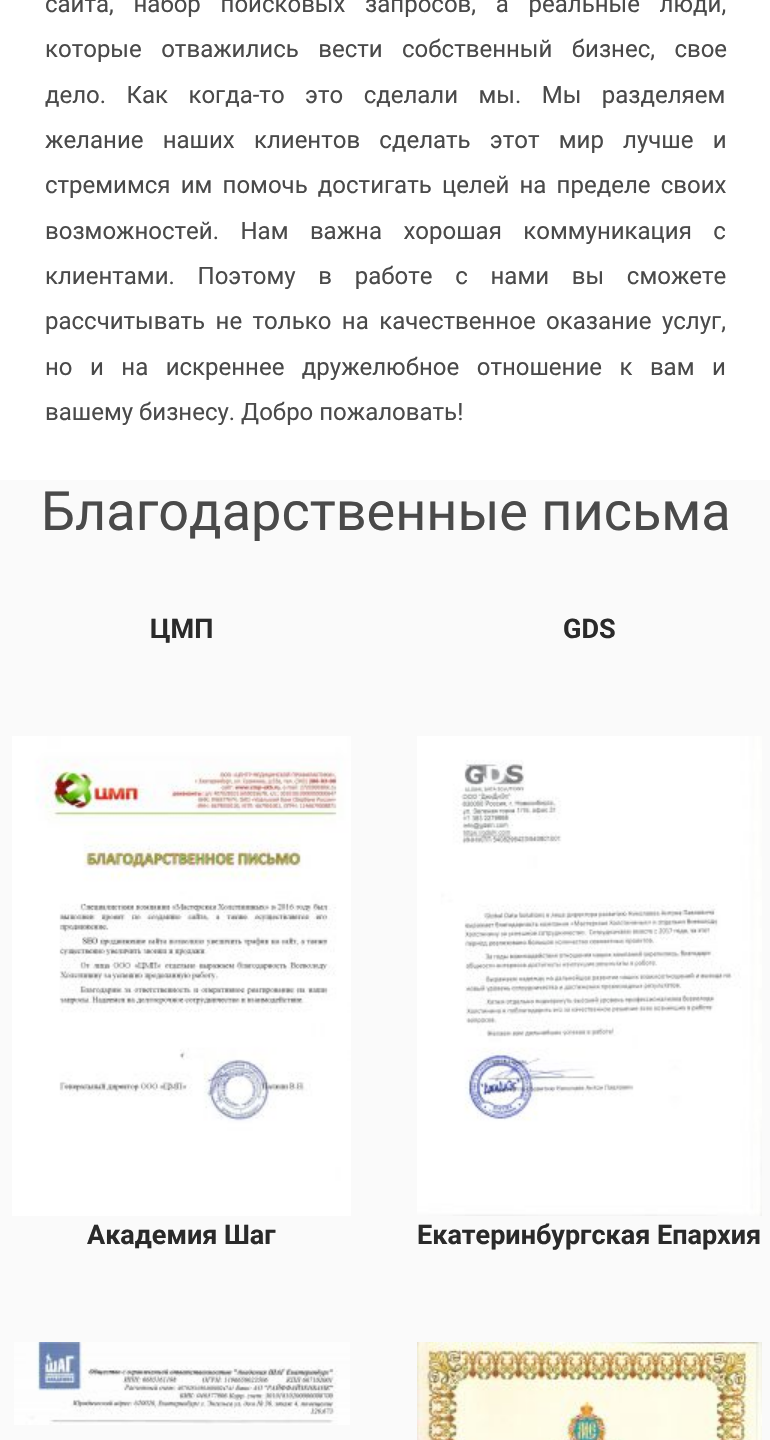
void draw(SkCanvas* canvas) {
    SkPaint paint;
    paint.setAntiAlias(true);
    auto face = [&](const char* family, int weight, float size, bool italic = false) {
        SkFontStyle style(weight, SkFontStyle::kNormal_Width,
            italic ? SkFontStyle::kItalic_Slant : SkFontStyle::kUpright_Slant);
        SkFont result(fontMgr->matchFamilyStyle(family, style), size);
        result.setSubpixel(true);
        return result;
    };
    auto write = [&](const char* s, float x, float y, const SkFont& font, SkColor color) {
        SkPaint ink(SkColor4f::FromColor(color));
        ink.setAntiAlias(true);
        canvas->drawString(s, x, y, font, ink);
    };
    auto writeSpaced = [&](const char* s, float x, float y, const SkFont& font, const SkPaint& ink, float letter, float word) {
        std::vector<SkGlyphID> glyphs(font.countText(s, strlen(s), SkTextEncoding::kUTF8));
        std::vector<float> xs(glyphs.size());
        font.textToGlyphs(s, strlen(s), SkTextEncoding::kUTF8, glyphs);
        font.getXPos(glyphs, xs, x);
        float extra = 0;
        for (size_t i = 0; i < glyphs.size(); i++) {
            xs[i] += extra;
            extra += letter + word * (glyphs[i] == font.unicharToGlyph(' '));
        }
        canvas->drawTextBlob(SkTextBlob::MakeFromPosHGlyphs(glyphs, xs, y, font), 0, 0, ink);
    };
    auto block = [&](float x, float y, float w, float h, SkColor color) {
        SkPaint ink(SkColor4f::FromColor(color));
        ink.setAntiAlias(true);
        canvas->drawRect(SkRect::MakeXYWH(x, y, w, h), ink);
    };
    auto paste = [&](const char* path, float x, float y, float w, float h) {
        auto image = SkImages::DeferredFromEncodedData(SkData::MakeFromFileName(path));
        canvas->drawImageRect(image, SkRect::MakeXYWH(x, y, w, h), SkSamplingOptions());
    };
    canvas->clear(SK_ColorWHITE);
    auto kFont1 = face("Roboto", 400, 24);
    paint.setColor(SkColorSetRGB(74, 74, 74));
    writeSpaced("сайта, набор поисковых запросов, а реальные люди,", 45, 12, kFont1, paint, 0, 13.75f);
    writeSpaced("которые отважились вести собственный бизнес, свое", 45, 57, kFont1, paint, 0, 13.5f);
    writeSpaced("дело. Как когда-то это сделали мы. Мы разделяем", 45, 103, kFont1, paint, 0, 14.5f);
    writeSpaced("желание наших клиентов сделать этот мир лучше и", 45, 148, kFont1, paint, 0, 13.25f);
    writeSpaced("стремимся им помочь достигать целей на пределе своих", 45, 193, kFont1, paint, 0, 4.25f);
    writeSpaced("возможностей. Нам важна хорошая коммуникация с", 45, 239, kFont1, paint, 0, 15.5f);
    writeSpaced("клиентами. Поэтому в работе с нами вы сможете", 45, 284, kFont1, paint, 0, 16.75f);
    writeSpaced("рассчитывать не только на качественное оказание услуг,", 45, 329, kFont1, paint, 0, 4.5f);
    writeSpaced("но и на искреннее дружелюбное отношение к вам и", 45, 375, kFont1, paint, 0, 11.5f);
    write("вашему бизнесу. Добро пожаловать!", 45, 420, kFont1, SkColorSetRGB(74, 74, 74));
    block(0, 480, 770, 960, SkColorSetRGB(250, 250, 250));
    auto kFont2 = face("Roboto", 400, 54);
    write("Благодарственные письма", 41, 530, kFont2, SkColorSetRGB(74, 74, 74));
    auto kFont3 = face("Roboto", 700, 27);
    write("ЦМП", 150, 638, kFont3, SkColorSetRGB(42, 42, 42));
    paste("pic1.png", 12, 736, 339, 480);
    write("GDS", 563, 638, kFont3, SkColorSetRGB(42, 42, 42));
    paste("pic2.png", 417, 736, 345, 480);
    write("Академия Шаг", 87, 1244, kFont3, SkColorSetRGB(42, 42, 42));
    paste("pic3.png", 14, 1342, 336, 83);
    write("Екатеринбургская Епархия", 417, 1244, kFont3, SkColorSetRGB(42, 42, 42));
    paste("pic4.png", 417, 1342, 345, 98);
}
